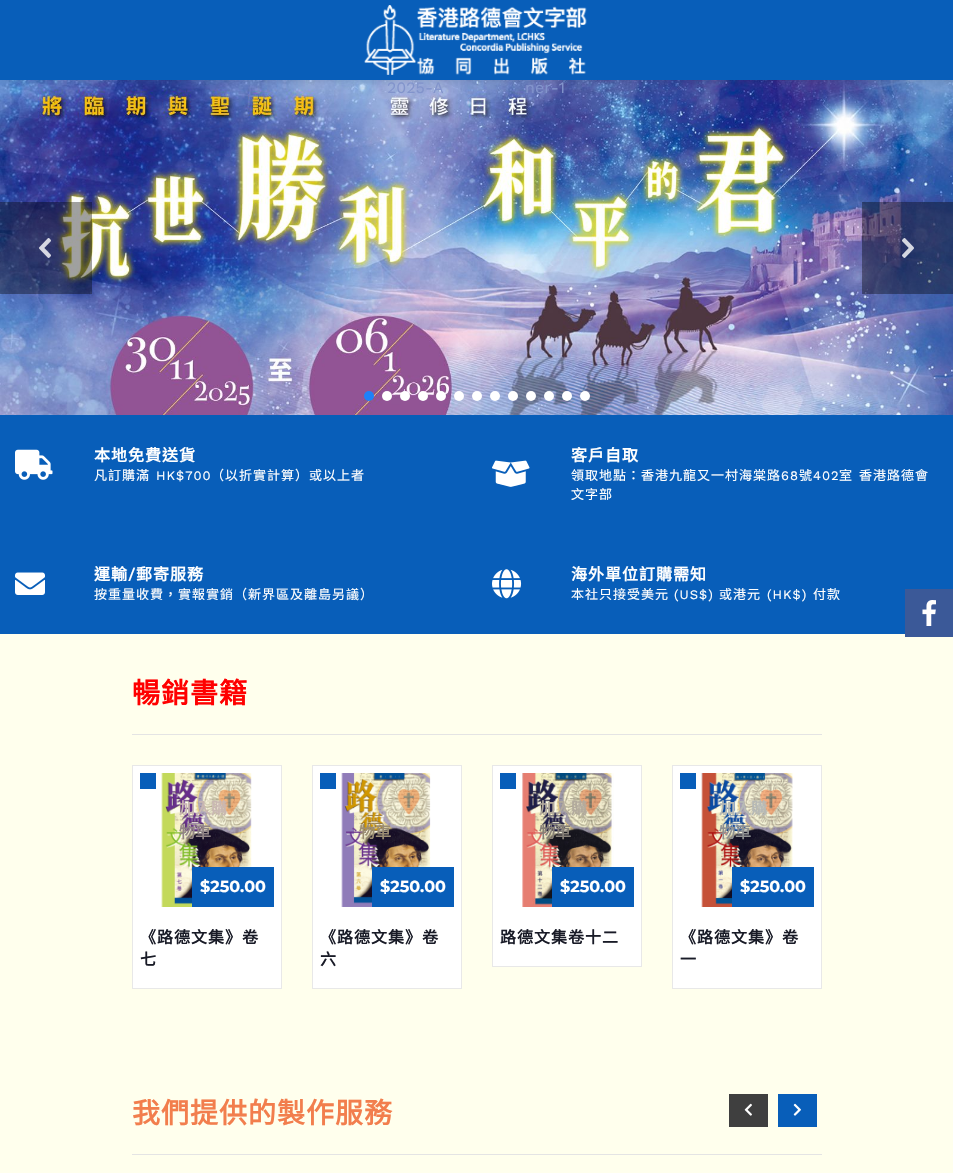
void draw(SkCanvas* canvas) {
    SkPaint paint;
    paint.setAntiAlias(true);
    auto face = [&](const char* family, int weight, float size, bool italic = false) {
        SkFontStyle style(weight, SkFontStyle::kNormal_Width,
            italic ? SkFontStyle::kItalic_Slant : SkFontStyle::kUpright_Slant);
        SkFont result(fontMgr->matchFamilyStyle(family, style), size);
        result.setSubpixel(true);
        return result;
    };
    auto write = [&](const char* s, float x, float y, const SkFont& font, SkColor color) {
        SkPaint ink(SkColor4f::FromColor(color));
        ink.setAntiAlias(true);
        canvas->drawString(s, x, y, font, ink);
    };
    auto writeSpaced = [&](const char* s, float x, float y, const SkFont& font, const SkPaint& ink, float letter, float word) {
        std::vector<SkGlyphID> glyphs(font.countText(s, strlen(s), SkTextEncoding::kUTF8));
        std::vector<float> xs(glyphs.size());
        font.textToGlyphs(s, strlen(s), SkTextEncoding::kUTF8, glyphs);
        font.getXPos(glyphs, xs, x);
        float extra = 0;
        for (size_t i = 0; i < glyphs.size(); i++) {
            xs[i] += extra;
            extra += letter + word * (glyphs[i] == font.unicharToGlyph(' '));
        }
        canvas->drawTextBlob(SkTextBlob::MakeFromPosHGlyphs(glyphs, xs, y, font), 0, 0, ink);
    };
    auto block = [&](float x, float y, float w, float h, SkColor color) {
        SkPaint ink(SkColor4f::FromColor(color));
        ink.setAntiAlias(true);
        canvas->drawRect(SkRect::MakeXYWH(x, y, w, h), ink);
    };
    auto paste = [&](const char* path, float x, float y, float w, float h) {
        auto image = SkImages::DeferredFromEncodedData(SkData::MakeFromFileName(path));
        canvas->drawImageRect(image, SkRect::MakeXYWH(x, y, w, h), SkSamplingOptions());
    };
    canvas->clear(SkColorSetRGB(255, 255, 237));
    paste("pic2.png", 0, 80, 953, 335);
    paint.setColor(SkColorSetARGB(38, 0, 0, 0));
    paint.setMaskFilter(SkMaskFilter::MakeBlur(kNormal_SkBlurStyle, 4));
    canvas->drawRect(SkRect::MakeXYWH(0, 0, 953, 80), paint);
    paint.setMaskFilter(nullptr);
    block(0, 0, 953, 80, SkColorSetRGB(8, 94, 185));
    paste("pic1.png", 364, 5, 223, 70);
    auto kFont1 = face("Work Sans", 400, 16);
    write("2025-A", 387, 93, kFont1, SkColorSetRGB(130, 148, 204));
    write("ner-1", 525, 93, kFont1, SkColorSetRGB(130, 148, 204));
    block(0, 202, 92, 92, SkColorSetARGB(94, 0, 0, 0));
    paste("pic3.png", 39, 238, 12, 20);
    block(862, 202, 91, 92, SkColorSetARGB(94, 0, 0, 0));
    paste("pic4.png", 902, 238, 12, 20);
    paint.setColor(SkColorSetRGB(29, 129, 249));
    canvas->drawCircle(369, 396, 5, paint);
    paint.setColor(SK_ColorWHITE);
    canvas->drawCircle(387, 396, 5, paint);
    canvas->drawCircle(405, 396, 5, paint);
    canvas->drawCircle(423, 396, 5, paint);
    canvas->drawCircle(441, 396, 5, paint);
    canvas->drawCircle(459, 396, 5, paint);
    canvas->drawCircle(477, 396, 5, paint);
    canvas->drawCircle(495, 396, 5, paint);
    canvas->drawCircle(513, 396, 5, paint);
    canvas->drawCircle(531, 396, 5, paint);
    canvas->drawCircle(549, 396, 5, paint);
    canvas->drawCircle(567, 396, 5, paint);
    canvas->drawCircle(585, 396, 5, paint);
    block(0, 415, 953, 119, SkColorSetRGB(8, 94, 185));
    paste("pic5.png", 15, 449, 38, 31);
    auto kFont2 = face("Noto Sans CJK HK", 700, 16);
    writeSpaced("本地免費送貨", 94, 461, kFont2, paint, 1, 0);
    auto kFont3 = face("Noto Sans CJK HK", 400, 13);
    writeSpaced("凡訂購滿", 94, 480, kFont3, paint, 1, 0);
    auto kFont4 = face("Work Sans", 400, 13);
    writeSpaced("HK$700", 156, 480, kFont4, paint, 1, 0);
    writeSpaced("（以折實計算）或以上者", 211, 480, kFont3, paint, 1, 0);
    paste("pic6.png", 492, 460, 38, 27);
    writeSpaced("客戶自取", 571, 461, kFont2, paint, 1, 0);
    writeSpaced("領取地點：香港九龍又一村海棠路", 571, 480, kFont3, paint, 1, 0);
    writeSpaced("68", 781, 480, kFont4, paint, 1, 0);
    writeSpaced("號", 799, 480, kFont3, paint, 1, 0);
    writeSpaced("402", 813, 480, kFont4, paint, 1, 0);
    writeSpaced("室 香港路德會", 839, 480, kFont3, paint, 1, 2);
    writeSpaced("文字部", 571, 499, kFont3, paint, 1, 0);
    block(0, 534, 953, 100, SkColorSetRGB(8, 94, 185));
    paste("pic7.png", 15, 572, 30, 23);
    writeSpaced("運輸", 94, 580, kFont2, paint, 1, 0);
    auto kFont5 = face("Work Sans", 700, 16);
    writeSpaced("/", 128, 580, kFont5, paint, 1, 0);
    writeSpaced("郵寄服務", 136, 580, kFont2, paint, 1, 0);
    writeSpaced("按重量收費，實報實銷（新界區及離島另議）", 94, 599, kFont3, paint, 1, 0);
    paste("pic8.png", 492, 569, 30, 30);
    writeSpaced("海外單位訂購需知", 571, 580, kFont2, paint, 1, 0);
    writeSpaced("本社只接受美元", 571, 599, kFont3, paint, 1, 0);
    writeSpaced("(US$)", 674, 599, kFont4, paint, 1, 0);
    writeSpaced("或港元", 719, 599, kFont3, paint, 1, 0);
    writeSpaced("(HK$)", 767, 599, kFont4, paint, 1, 0);
    writeSpaced("付款", 813, 599, kFont3, paint, 1, 0);
    block(905, 589, 48, 48, SkColorSetRGB(59, 89, 152));
    paste("pic9.png", 922, 600, 14, 26);
    block(132, 734, 690, 1, SkColorSetRGB(228, 228, 228));
    auto kFont6 = face("Noto Sans CJK HK", 700, 28);
    paint.setColor(SkColorSetRGB(255, 0, 0));
    writeSpaced("暢銷書籍", 132, 703, kFont6, paint, 1, 0);
    paint.setColor(SK_ColorWHITE);
    canvas->drawRect(SkRect::MakeXYWH(132.5f, 765.5f, 149, 223), paint);
    paint.setStyle(SkPaint::kStroke_Style);
    paint.setStrokeWidth(1);
    paint.setColor(SkColorSetRGB(232, 232, 232));
    canvas->drawRect(SkRect::MakeXYWH(132.5f, 765.5f, 149, 223), paint);
    paste("pic10.png", 161, 773, 91, 134);
    write("加入購", 179, 814, kFont2, SkColorSetRGB(201, 183, 178));
    write("物車", 179, 838, kFont2, SkColorSetRGB(146, 133, 134));
    block(140, 773, 16, 16, SkColorSetRGB(8, 94, 185));
    block(192, 867, 82, 40, SkColorSetRGB(8, 94, 185));
    auto kFont7 = face("Montserrat", 700, 16);
    write("$250.00", 200, 892, kFont7, SK_ColorWHITE);
    paint.setStyle(SkPaint::kFill_Style);
    paint.setColor(SkColorSetRGB(25, 27, 39));
    writeSpaced("《路德文集》卷", 140, 943, kFont2, paint, 1, 0);
    writeSpaced("七", 140, 965, kFont2, paint, 1, 0);
    paint.setColor(SK_ColorWHITE);
    canvas->drawRect(SkRect::MakeXYWH(312.5f, 765.5f, 149, 223), paint);
    paint.setStyle(SkPaint::kStroke_Style);
    paint.setColor(SkColorSetRGB(232, 232, 232));
    canvas->drawRect(SkRect::MakeXYWH(312.5f, 765.5f, 149, 223), paint);
    paste("pic11.png", 341, 773, 90, 134);
    write("物車", 359, 838, kFont2, SkColorSetRGB(154, 140, 114));
    block(320, 773, 16, 16, SkColorSetRGB(8, 94, 185));
    block(372, 867, 82, 40, SkColorSetRGB(8, 94, 185));
    write("$250.00", 380, 892, kFont7, SK_ColorWHITE);
    paint.setStyle(SkPaint::kFill_Style);
    paint.setColor(SkColorSetRGB(25, 27, 39));
    writeSpaced("《路德文集》卷", 320, 943, kFont2, paint, 1, 0);
    writeSpaced("六", 320, 965, kFont2, paint, 1, 0);
    paint.setColor(SK_ColorWHITE);
    canvas->drawRect(SkRect::MakeXYWH(492.5f, 765.5f, 149, 201), paint);
    paint.setStyle(SkPaint::kStroke_Style);
    paint.setColor(SkColorSetRGB(232, 232, 232));
    canvas->drawRect(SkRect::MakeXYWH(492.5f, 765.5f, 149, 201), paint);
    paste("pic12.png", 522, 773, 92, 134);
    write("加入購", 539, 814, kFont2, SkColorSetRGB(178, 170, 157));
    write("物車", 539, 838, kFont2, SkColorSetRGB(134, 127, 119));
    block(500, 773, 16, 16, SkColorSetRGB(8, 94, 185));
    block(552, 867, 82, 40, SkColorSetRGB(8, 94, 185));
    write("$250.00", 560, 892, kFont7, SK_ColorWHITE);
    paint.setStyle(SkPaint::kFill_Style);
    paint.setColor(SkColorSetRGB(25, 27, 39));
    writeSpaced("路德文集卷十二", 500, 943, kFont2, paint, 1, 0);
    paint.setColor(SK_ColorWHITE);
    canvas->drawRect(SkRect::MakeXYWH(672.5f, 765.5f, 149, 223), paint);
    paint.setStyle(SkPaint::kStroke_Style);
    paint.setColor(SkColorSetRGB(232, 232, 232));
    canvas->drawRect(SkRect::MakeXYWH(672.5f, 765.5f, 149, 223), paint);
    paste("pic13.png", 701, 773, 92, 134);
    write("加入購", 719, 814, kFont2, SkColorSetRGB(182, 185, 182));
    write("物車", 719, 838, kFont2, SkColorSetRGB(142, 144, 146));
    block(680, 773, 16, 16, SkColorSetRGB(8, 94, 185));
    block(732, 867, 82, 40, SkColorSetRGB(8, 94, 185));
    write("$250.00", 740, 892, kFont7, SK_ColorWHITE);
    paint.setStyle(SkPaint::kFill_Style);
    paint.setColor(SkColorSetRGB(25, 27, 39));
    writeSpaced("《路德文集》卷", 680, 943, kFont2, paint, 1, 0);
    writeSpaced("一", 680, 965, kFont2, paint, 1, 0);
    block(132, 1154, 690, 1, SkColorSetRGB(228, 228, 228));
    paint.setColor(SkColorSetRGB(242, 126, 77));
    writeSpaced("我們提供的製作服務", 132, 1123, kFont6, paint, 1, 0);
    block(729, 1094, 39, 33, SkColorSetRGB(63, 63, 63));
    paste("pic14.png", 744, 1103, 8, 13);
    block(778, 1094, 39, 33, SkColorSetRGB(8, 94, 185));
    paste("pic15.png", 793, 1103, 8, 13);
}
